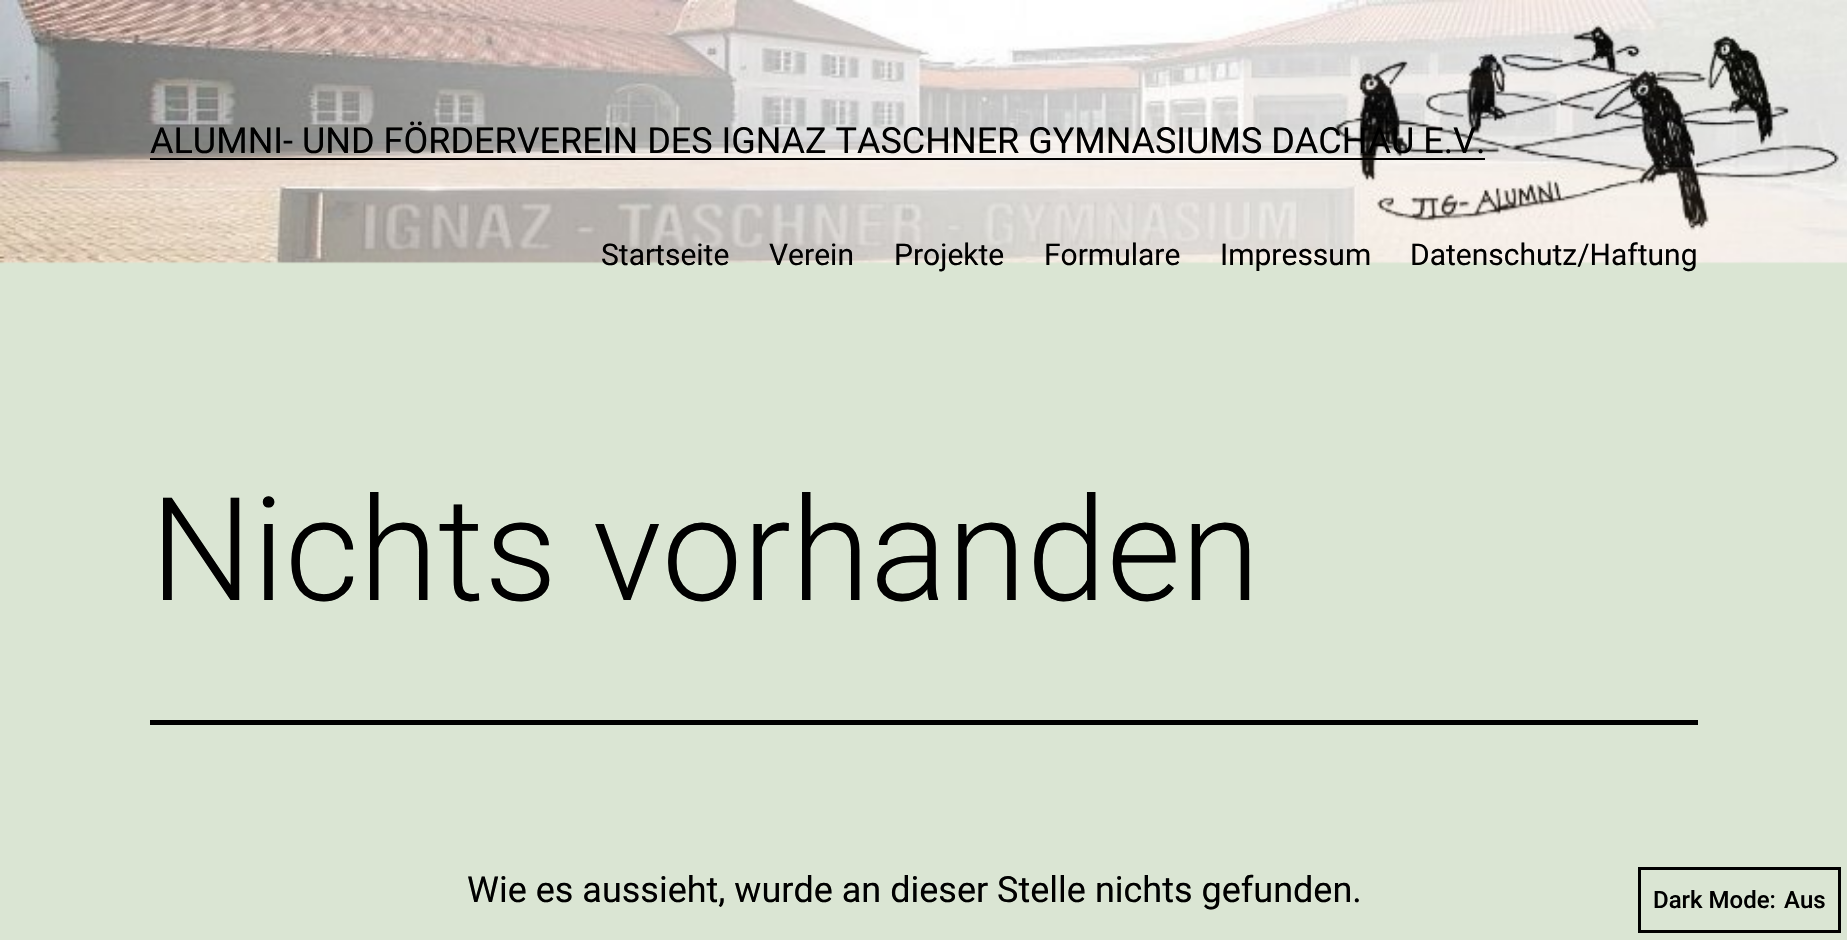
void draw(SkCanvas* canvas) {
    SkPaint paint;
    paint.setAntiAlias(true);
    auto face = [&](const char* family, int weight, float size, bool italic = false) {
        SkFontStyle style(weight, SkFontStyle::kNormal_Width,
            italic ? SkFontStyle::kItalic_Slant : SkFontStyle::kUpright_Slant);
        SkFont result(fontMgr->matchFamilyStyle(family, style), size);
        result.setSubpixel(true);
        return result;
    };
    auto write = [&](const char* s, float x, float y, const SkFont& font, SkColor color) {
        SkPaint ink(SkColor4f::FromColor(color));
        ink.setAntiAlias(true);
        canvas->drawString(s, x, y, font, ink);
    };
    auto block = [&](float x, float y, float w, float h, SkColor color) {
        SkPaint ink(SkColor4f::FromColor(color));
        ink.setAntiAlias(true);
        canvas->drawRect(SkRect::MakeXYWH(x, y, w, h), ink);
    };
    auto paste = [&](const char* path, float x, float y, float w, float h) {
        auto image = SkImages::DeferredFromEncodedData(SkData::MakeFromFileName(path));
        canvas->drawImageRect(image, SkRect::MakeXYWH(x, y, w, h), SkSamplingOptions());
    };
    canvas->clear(SkColorSetRGB(218, 229, 211));
    paste("pic1.png", 0, 0, 1847, 264);
    auto kFont1 = face("Roboto", 400, 36);
    write("ALUMNI- UND FÖRDERVEREIN DES IGNAZ TASCHNER GYMNASIUMS DACHAU E.V.", 150, 153, kFont1, SK_ColorBLACK);
    block(150, 158, 1335, 2, SK_ColorBLACK);
    auto kFont2 = face("Roboto", 400, 30);
    write("Startseite", 601, 265, kFont2, SK_ColorBLACK);
    write("Verein", 769, 265, kFont2, SK_ColorBLACK);
    write("Projekte", 894, 265, kFont2, SK_ColorBLACK);
    write("Formulare", 1044, 265, kFont2, SK_ColorBLACK);
    write("Impressum", 1220, 265, kFont2, SK_ColorBLACK);
    write("Datenschutz/Haftung", 1410, 265, kFont2, SK_ColorBLACK);
    block(150, 720, 1548, 5, SK_ColorBLACK);
    auto kFont3 = face("Roboto", 300, 144);
    write("Nichts vorhanden", 150, 600, kFont3, SK_ColorBLACK);
    write("Wie es aussieht, wurde an dieser Stelle nichts gefunden.", 467, 902, kFont1, SK_ColorBLACK);
    paint.setStyle(SkPaint::kStroke_Style);
    paint.setStrokeWidth(3);
    paint.setColor(SK_ColorBLACK);
    canvas->drawRect(SkRect::MakeXYWH(1639.5f, 868.5f, 200, 63), paint);
    auto kFont4 = face("Roboto", 500, 24);
    write("Dark Mode:", 1653, 908, kFont4, SK_ColorBLACK);
    write("Aus", 1784, 908, kFont4, SK_ColorBLACK);
}
